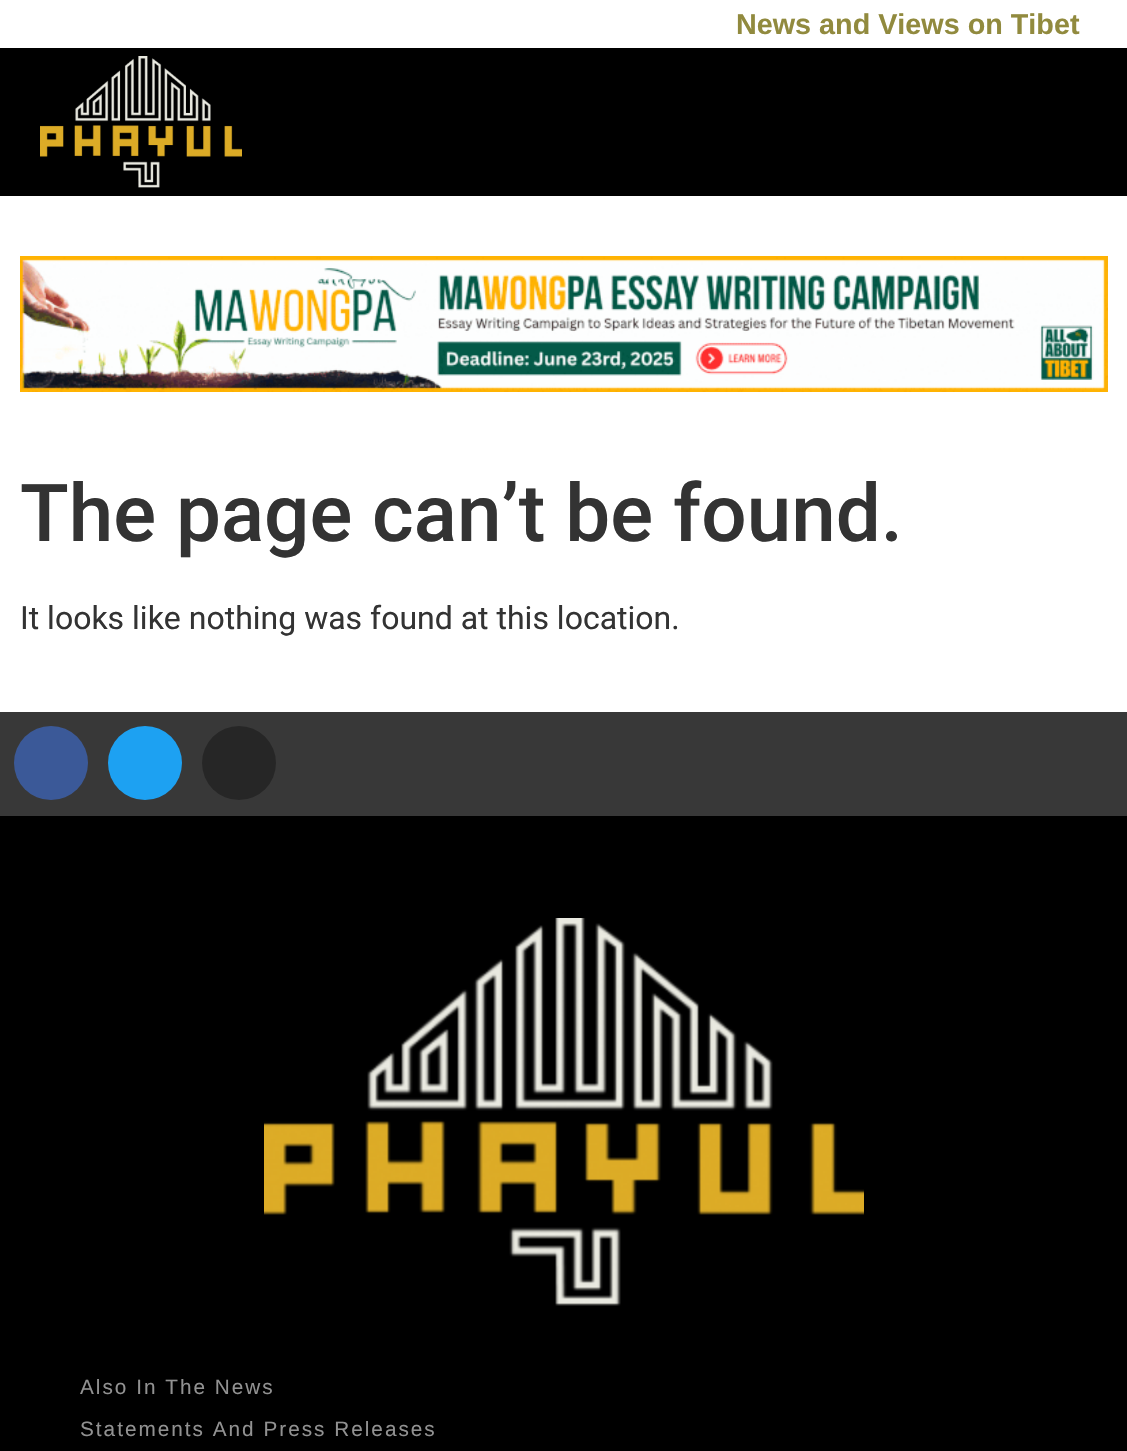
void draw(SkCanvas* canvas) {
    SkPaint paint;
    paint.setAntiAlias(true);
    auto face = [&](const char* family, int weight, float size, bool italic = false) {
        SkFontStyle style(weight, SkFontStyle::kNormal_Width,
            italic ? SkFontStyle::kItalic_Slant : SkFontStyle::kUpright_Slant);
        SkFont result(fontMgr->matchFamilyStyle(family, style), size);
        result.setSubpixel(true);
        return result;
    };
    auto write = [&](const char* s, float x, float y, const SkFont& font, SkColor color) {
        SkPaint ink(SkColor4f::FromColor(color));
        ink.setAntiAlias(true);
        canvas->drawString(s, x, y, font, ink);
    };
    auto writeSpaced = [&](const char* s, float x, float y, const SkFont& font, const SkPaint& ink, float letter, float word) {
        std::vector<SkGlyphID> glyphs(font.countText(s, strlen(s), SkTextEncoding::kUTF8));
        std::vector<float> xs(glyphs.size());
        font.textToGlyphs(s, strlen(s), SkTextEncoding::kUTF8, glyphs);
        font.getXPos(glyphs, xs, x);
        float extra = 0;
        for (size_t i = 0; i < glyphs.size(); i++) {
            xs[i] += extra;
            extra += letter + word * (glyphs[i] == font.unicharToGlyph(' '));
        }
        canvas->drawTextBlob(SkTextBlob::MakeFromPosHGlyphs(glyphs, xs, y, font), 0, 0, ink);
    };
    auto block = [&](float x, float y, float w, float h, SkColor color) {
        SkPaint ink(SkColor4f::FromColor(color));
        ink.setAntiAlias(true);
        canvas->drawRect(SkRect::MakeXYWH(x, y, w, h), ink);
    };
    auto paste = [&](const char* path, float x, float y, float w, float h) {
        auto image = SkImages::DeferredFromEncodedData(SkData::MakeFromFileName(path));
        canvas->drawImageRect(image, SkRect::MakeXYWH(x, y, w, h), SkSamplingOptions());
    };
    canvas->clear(SK_ColorWHITE);
    auto kFont1 = face("Liberation Sans", 700, 28.75f);
    write("News and Views on Tibet", 736, 34, kFont1, SkColorSetRGB(145, 138, 62));
    block(0, 48, 1127, 148, SK_ColorBLACK);
    paste("pic1.png", 40, 56, 202, 132);
    paste("pic2.png", 20, 256, 1088, 136);
    auto kFont2 = face("Roboto", 500, 80);
    write("The page can’t be found.", 20, 541, kFont2, SkColorSetRGB(51, 51, 51));
    auto kFont3 = face("Roboto", 400, 32);
    write("It looks like nothing was found at this location.", 20, 629, kFont3, SkColorSetRGB(51, 51, 51));
    block(0, 712, 1127, 104, SkColorSetRGB(56, 56, 56));
    paint.setColor(SkColorSetRGB(59, 89, 152));
    canvas->drawCircle(51, 763, 37, paint);
    paint.setColor(SkColorSetRGB(29, 161, 242));
    canvas->drawCircle(145, 763, 37, paint);
    paint.setColor(SkColorSetRGB(38, 38, 38));
    canvas->drawCircle(239, 763, 37, paint);
    block(0, 816, 1127, 635, SK_ColorBLACK);
    paste("pic3.png", 264, 918, 600, 388);
    auto kFont4 = face("Liberation Sans", 400, 20.75f);
    paint.setColor(SkColorSetRGB(145, 145, 145));
    writeSpaced("Also In The News", 80, 1394, kFont4, paint, 2, 0);
    writeSpaced("Statements And Press Releases", 80, 1436, kFont4, paint, 2, 0);
}
